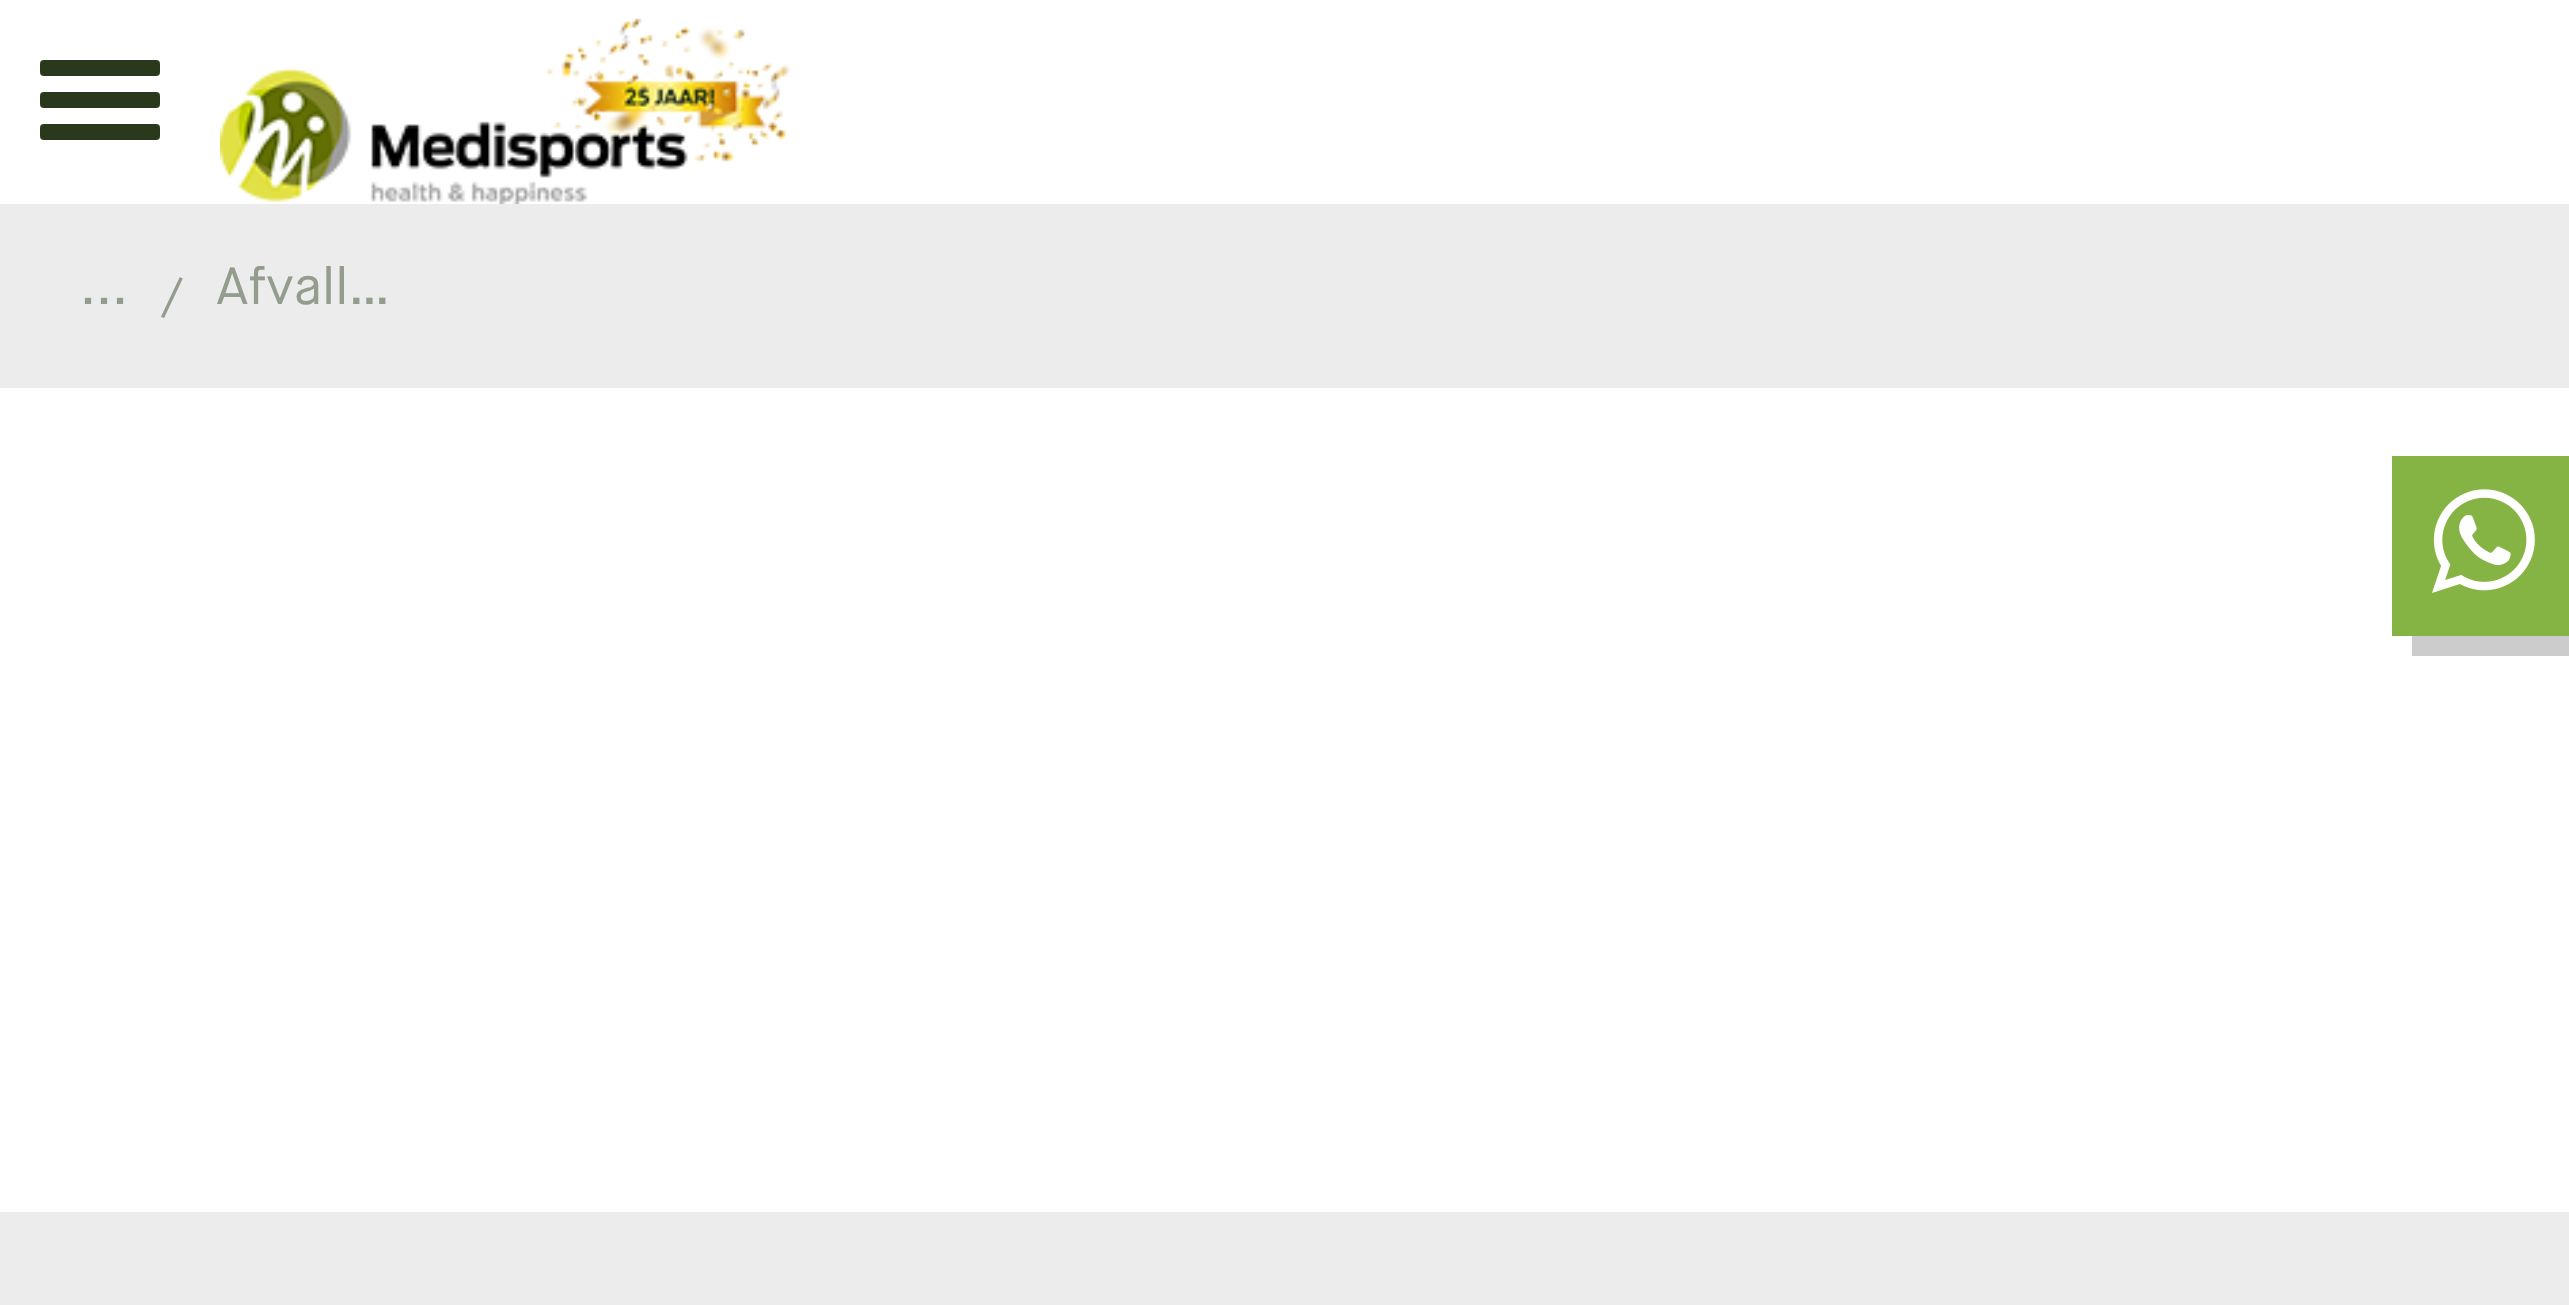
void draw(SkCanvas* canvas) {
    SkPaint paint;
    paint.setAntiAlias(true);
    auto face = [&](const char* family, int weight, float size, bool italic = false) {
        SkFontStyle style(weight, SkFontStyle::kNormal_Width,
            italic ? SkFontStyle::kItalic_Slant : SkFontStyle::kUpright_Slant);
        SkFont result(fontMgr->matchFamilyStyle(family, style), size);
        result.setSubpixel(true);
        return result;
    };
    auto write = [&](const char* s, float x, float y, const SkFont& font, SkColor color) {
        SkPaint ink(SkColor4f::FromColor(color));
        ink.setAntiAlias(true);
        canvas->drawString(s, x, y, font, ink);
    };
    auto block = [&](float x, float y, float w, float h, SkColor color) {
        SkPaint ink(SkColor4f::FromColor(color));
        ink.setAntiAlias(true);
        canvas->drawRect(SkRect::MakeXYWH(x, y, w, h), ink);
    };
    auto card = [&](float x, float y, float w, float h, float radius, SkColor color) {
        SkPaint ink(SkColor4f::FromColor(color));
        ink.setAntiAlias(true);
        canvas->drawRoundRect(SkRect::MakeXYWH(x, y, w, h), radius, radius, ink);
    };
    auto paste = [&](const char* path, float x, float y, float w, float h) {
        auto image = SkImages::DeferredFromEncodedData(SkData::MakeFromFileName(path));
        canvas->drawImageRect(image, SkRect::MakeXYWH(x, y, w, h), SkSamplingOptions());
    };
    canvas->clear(SK_ColorWHITE);
    card(40, 60, 120, 16, 4, SkColorSetRGB(42, 57, 27));
    card(40, 92, 120, 16, 4, SkColorSetRGB(42, 57, 27));
    card(40, 124, 120, 16, 4, SkColorSetRGB(42, 57, 27));
    paste("pic1.png", 220, 17, 571, 187);
    block(0, 204, 2569, 184, SkColorSetRGB(236, 236, 236));
    auto kFont1 = face("Maison Neue", 400, 52);
    write("...", 80, 304, kFont1, SkColorSetRGB(148, 156, 141));
    write("/", 160, 316, kFont1, SkColorSetRGB(148, 156, 141));
    write("Afvall…", 216, 304, kFont1, SkColorSetRGB(148, 156, 141));
    paint.setColor(SkColorSetRGB(204, 204, 204));
    canvas->drawPath(SkPathBuilder().moveTo(2412, 636).lineTo(2412, 656).lineTo(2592, 656).lineTo(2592, 476).lineTo(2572, 476).lineTo(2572, 636).close().detach(), paint);
    block(2392, 456, 177, 180, SkColorSetRGB(134, 180, 68));
    paste("pic2.png", 2432, 489, 103, 104);
    block(0, 1212, 2569, 93, SkColorSetRGB(236, 236, 236));
}
